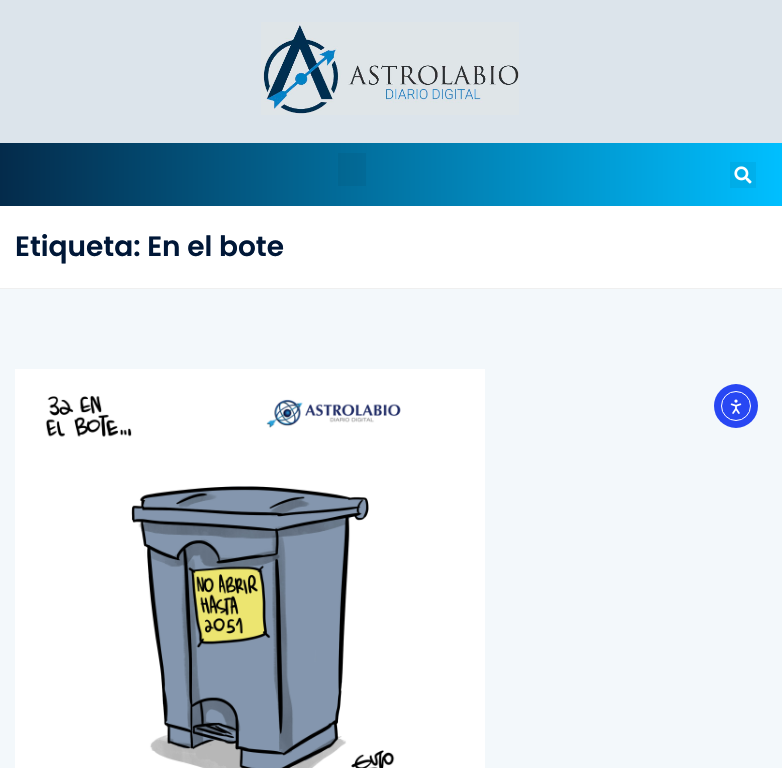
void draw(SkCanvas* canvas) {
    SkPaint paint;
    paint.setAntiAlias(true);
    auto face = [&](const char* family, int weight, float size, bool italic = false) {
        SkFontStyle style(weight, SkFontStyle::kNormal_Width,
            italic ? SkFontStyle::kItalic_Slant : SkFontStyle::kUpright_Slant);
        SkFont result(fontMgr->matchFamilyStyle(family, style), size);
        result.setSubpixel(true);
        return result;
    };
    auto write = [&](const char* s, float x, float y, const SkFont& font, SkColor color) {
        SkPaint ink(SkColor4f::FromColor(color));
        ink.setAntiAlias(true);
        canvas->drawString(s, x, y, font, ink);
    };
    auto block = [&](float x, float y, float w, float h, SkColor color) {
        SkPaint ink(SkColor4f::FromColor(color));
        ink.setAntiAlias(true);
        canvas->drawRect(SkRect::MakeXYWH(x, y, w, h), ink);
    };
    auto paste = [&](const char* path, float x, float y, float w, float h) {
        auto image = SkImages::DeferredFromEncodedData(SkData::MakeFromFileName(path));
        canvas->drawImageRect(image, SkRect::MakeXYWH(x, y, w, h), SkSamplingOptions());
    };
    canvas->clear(SK_ColorWHITE);
    block(0, 0, 782, 143, SkColorSetRGB(220, 228, 235));
    paste("pic1.png", 261, 22, 258, 93);
    {
        const SkColor colors[] = {SkColorSetRGB(4, 43, 75), SkColorSetRGB(0, 191, 255)};
        const float stops[] = {0, 1};
        const SkPoint ends[] = {{0, 175}, {782, 174}};
        paint.setShader(SkGradientShader::MakeLinear(ends, colors, stops, 2, SkTileMode::kClamp));
        paint.setAlpha(255);
    }
    canvas->drawRect(SkRect::MakeXYWH(0, 143, 782, 63), paint);
    block(338, 153, 28, 33, SkColorSetARGB(13, 0, 0, 0));
    block(730, 162, 26, 26, SkColorSetARGB(13, 0, 0, 0));
    paste("pic2.png", 734, 166, 18, 18);
    block(0, 288, 782, 1, SkColorSetRGB(239, 239, 239));
    auto kFont1 = face("Poppins", 600, 28);
    write("Etiqueta: En el bote", 15, 256, kFont1, SkColorSetRGB(0, 23, 55));
    block(0, 289, 782, 479, SkColorSetRGB(243, 248, 251));
    paste("pic3.png", 15, 369, 470, 399);
    paint.setShader(nullptr);
    paint.setColor(SkColorSetRGB(40, 71, 243));
    canvas->drawCircle(736, 406, 22, paint);
    paint.setStyle(SkPaint::kStroke_Style);
    paint.setStrokeWidth(1);
    paint.setColor(SK_ColorWHITE);
    canvas->drawCircle(736, 406, 14.5f, paint);
    paste("pic4.png", 730, 399, 12, 15);
}
